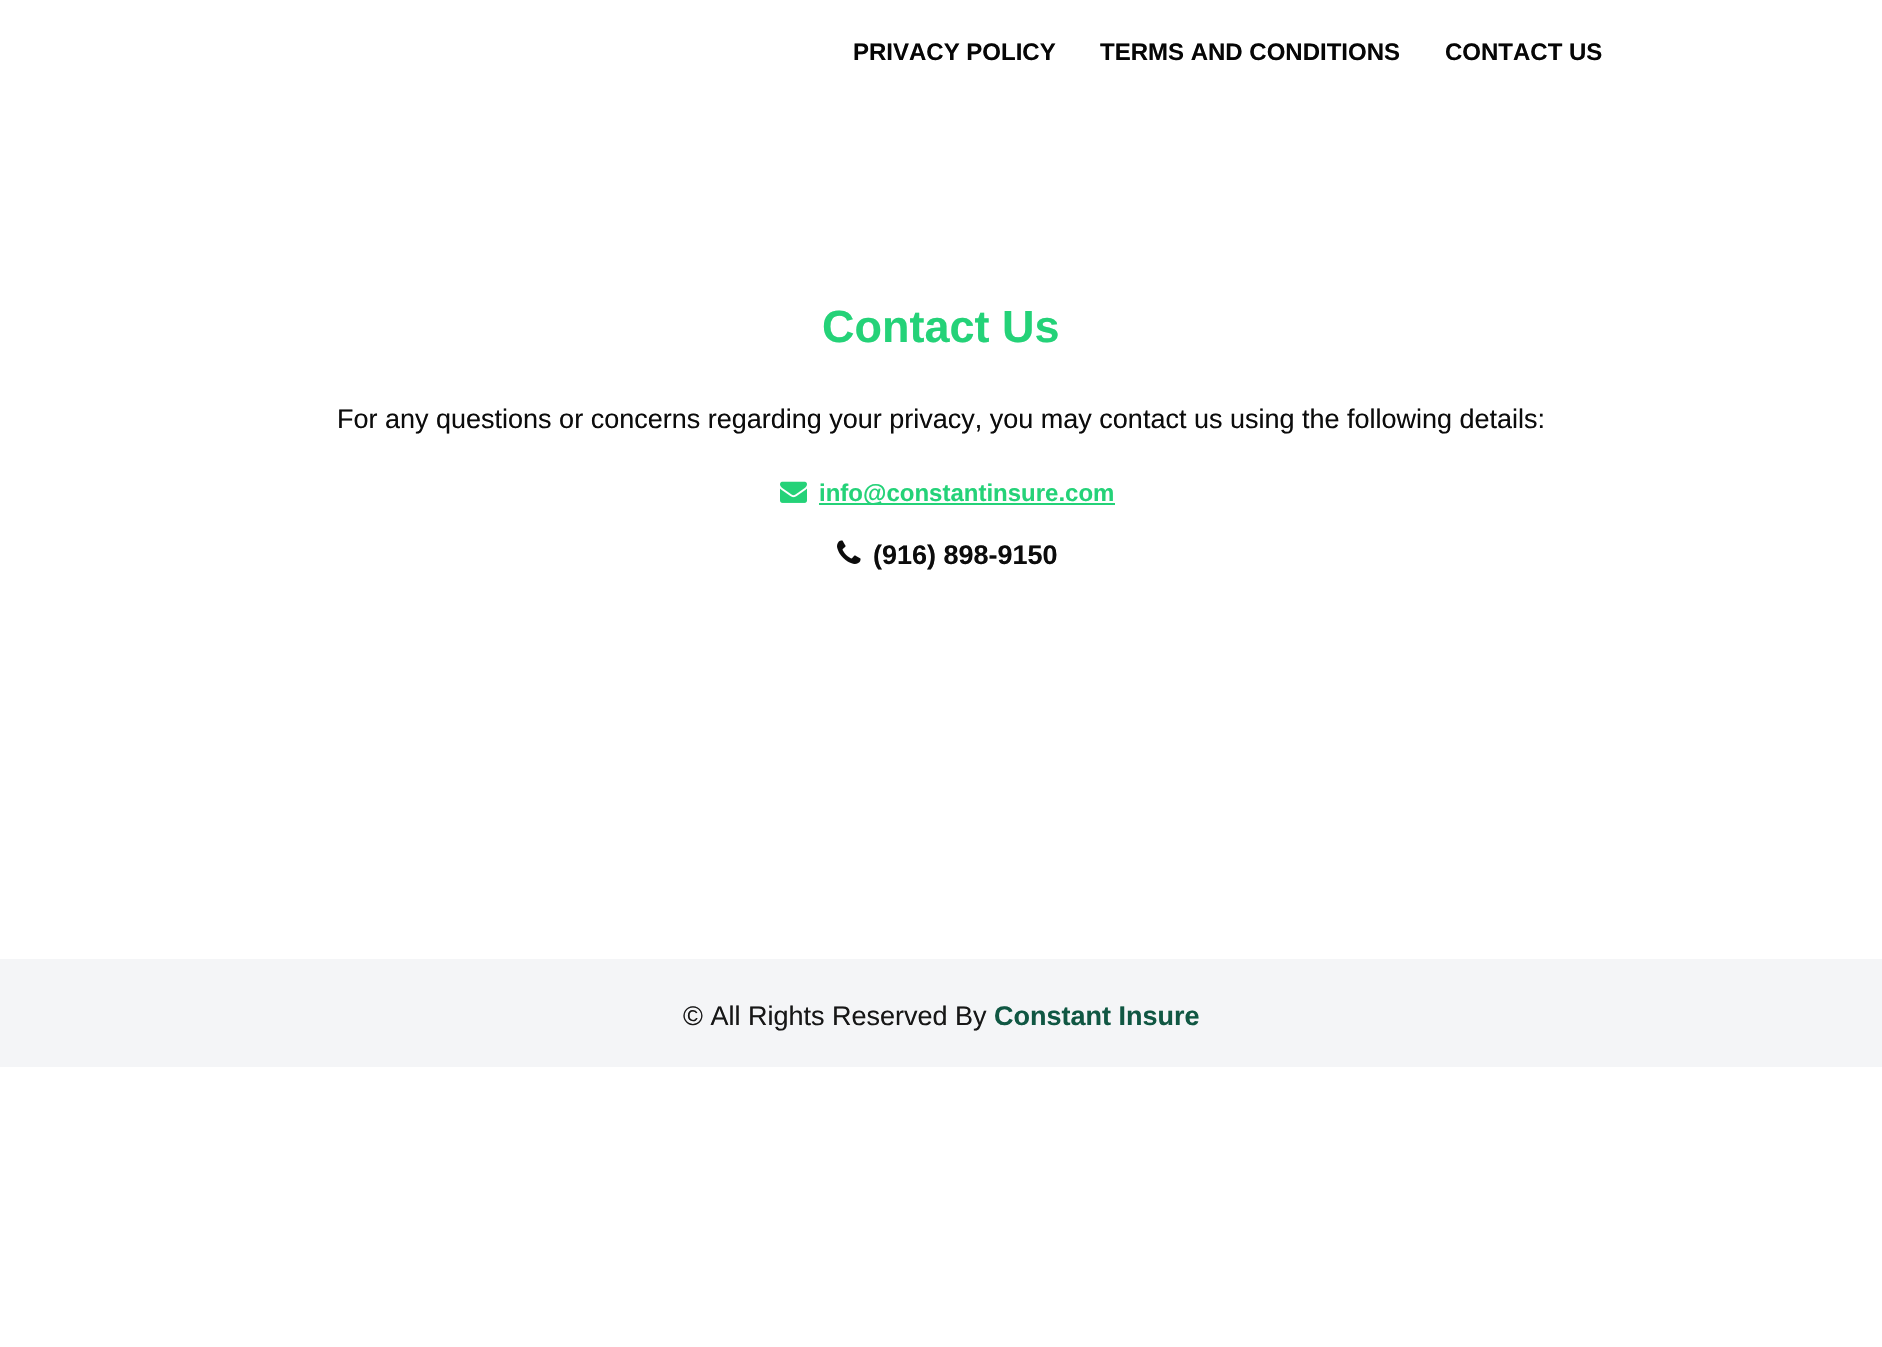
void draw(SkCanvas* canvas) {
    SkPaint paint;
    paint.setAntiAlias(true);
    auto face = [&](const char* family, int weight, float size, bool italic = false) {
        SkFontStyle style(weight, SkFontStyle::kNormal_Width,
            italic ? SkFontStyle::kItalic_Slant : SkFontStyle::kUpright_Slant);
        SkFont result(fontMgr->matchFamilyStyle(family, style), size);
        result.setSubpixel(true);
        return result;
    };
    auto write = [&](const char* s, float x, float y, const SkFont& font, SkColor color) {
        SkPaint ink(SkColor4f::FromColor(color));
        ink.setAntiAlias(true);
        canvas->drawString(s, x, y, font, ink);
    };
    auto block = [&](float x, float y, float w, float h, SkColor color) {
        SkPaint ink(SkColor4f::FromColor(color));
        ink.setAntiAlias(true);
        canvas->drawRect(SkRect::MakeXYWH(x, y, w, h), ink);
    };
    auto paste = [&](const char* path, float x, float y, float w, float h) {
        auto image = SkImages::DeferredFromEncodedData(SkData::MakeFromFileName(path));
        canvas->drawImageRect(image, SkRect::MakeXYWH(x, y, w, h), SkSamplingOptions());
    };
    canvas->clear(SK_ColorWHITE);
    auto kFont1 = face("Liberation Sans", 700, 24);
    write("PRIVACY POLICY", 853, 60, kFont1, SkColorSetRGB(6, 6, 6));
    write("TERMS AND CONDITIONS", 1100, 60, kFont1, SkColorSetRGB(6, 6, 6));
    write("CONTACT US", 1445, 60, kFont1, SkColorSetRGB(6, 6, 6));
    auto kFont2 = face("Liberation Sans", 700, 45);
    write("Contact Us", 822, 342, kFont2, SkColorSetRGB(36, 210, 120));
    auto kFont3 = face("Liberation Sans", 400, 27);
    write("For any questions or concerns regarding your privacy, you may contact us using the following details:", 337, 428, kFont3, SkColorSetRGB(12, 12, 12));
    paste("pic1.png", 780, 481, 27, 22);
    block(819, 503, 296, 2, SkColorSetRGB(36, 210, 120));
    write("info@constantinsure.com", 819, 501, kFont1, SkColorSetRGB(36, 210, 120));
    paste("pic2.png", 837, 540, 24, 24);
    auto kFont4 = face("Liberation Sans", 700, 27);
    write("(916) 898-9150", 873, 564, kFont4, SkColorSetRGB(12, 12, 12));
    block(0, 959, 1882, 108, SkColorSetRGB(244, 245, 247));
    write("© All Rights Reserved By", 683, 1025, kFont3, SkColorSetRGB(23, 23, 23));
    write("Constant Insure", 994, 1025, kFont4, SkColorSetRGB(16, 87, 67));
}
